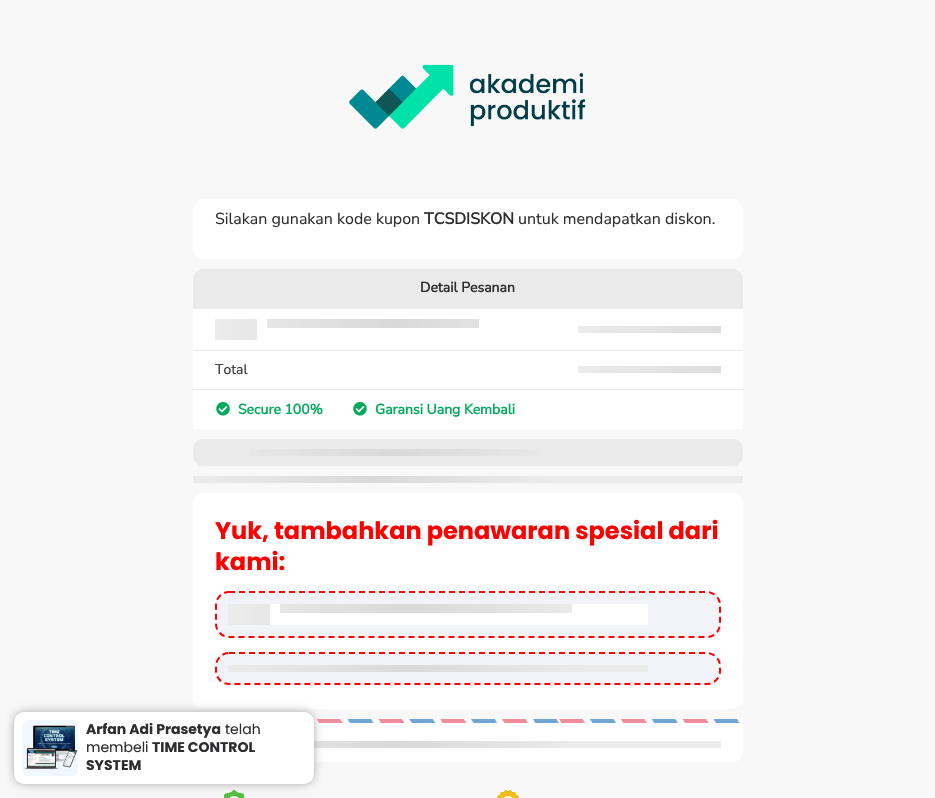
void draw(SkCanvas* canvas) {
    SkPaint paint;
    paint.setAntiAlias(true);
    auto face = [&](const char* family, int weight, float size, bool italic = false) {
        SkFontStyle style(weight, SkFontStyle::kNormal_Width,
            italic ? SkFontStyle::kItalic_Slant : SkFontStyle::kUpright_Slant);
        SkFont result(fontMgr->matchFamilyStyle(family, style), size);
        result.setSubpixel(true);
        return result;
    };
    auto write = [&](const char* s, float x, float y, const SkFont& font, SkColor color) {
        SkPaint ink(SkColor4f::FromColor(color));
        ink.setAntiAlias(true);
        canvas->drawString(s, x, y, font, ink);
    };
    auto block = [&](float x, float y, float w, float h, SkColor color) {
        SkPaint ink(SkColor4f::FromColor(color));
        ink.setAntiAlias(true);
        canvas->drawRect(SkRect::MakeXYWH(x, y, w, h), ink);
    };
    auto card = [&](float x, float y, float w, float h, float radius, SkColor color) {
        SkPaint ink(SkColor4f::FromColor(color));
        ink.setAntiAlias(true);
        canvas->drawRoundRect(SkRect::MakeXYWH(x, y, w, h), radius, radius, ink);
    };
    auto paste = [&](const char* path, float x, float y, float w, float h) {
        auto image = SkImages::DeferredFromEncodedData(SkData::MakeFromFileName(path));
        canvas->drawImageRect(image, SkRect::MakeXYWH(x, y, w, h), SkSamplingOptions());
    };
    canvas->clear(SkColorSetRGB(248, 248, 248));
    paste("pic1.png", 349, 64, 237, 65);
    card(193, 199, 550, 60, 10, SK_ColorWHITE);
    auto kFont1 = face("Nunito Sans", 200, 16);
    write("Silakan gunakan kode kupon", 215, 224, kFont1, SkColorSetRGB(46, 46, 49));
    auto kFont2 = face("Nunito Sans", 700, 16);
    write("TCSDISKON", 424, 224, kFont2, SkColorSetRGB(46, 46, 49));
    write("untuk mendapatkan diskon.", 518, 224, kFont1, SkColorSetRGB(46, 46, 49));
    card(193, 269, 550, 160, 10, SK_ColorWHITE);
    paint.setColor(SkColorSetRGB(234, 234, 234));
    canvas->drawPath(SkPathBuilder().moveTo(203, 269).lineTo(733, 269).cubicTo(738.5f, 269, 743, 273.5f, 743, 279).lineTo(743, 309).lineTo(193, 309).lineTo(193, 279).cubicTo(193, 273.5f, 197.5f, 269, 203, 269).close().detach(), paint);
    auto kFont3 = face("Nunito Sans", 700, 14);
    write("Detail Pesanan", 420, 292, kFont3, SkColorSetRGB(46, 46, 49));
    block(193, 350, 550, 1, SkColorSetRGB(233, 233, 233));
    {
        const SkColor colors[] = {SkColorSetRGB(235, 235, 235), SkColorSetRGB(217, 217, 217), SkColorSetRGB(235, 235, 235)};
        const float stops[] = {0, 0.15f, 0.3f};
        const SkPoint ends[] = {{215, 330}, {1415, 329}};
        paint.setShader(SkGradientShader::MakeLinear(ends, colors, stops, 3, SkTileMode::kClamp));
        paint.setAlpha(255);
    }
    canvas->drawRect(SkRect::MakeXYWH(215, 319, 264, 21), paint);
    block(257, 319, 10, 9, SK_ColorWHITE);
    block(257, 328, 222, 12, SK_ColorWHITE);
    {
        const SkColor colors[] = {SkColorSetRGB(235, 235, 235), SkColorSetRGB(217, 217, 217), SkColorSetRGB(235, 235, 235)};
        const float stops[] = {0, 0.15f, 0.3f};
        const SkPoint ends[] = {{578, 330}, {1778, 329}};
        paint.setShader(SkGradientShader::MakeLinear(ends, colors, stops, 3, SkTileMode::kClamp));
        paint.setAlpha(255);
    }
    canvas->drawRect(SkRect::MakeXYWH(578, 326, 143, 7), paint);
    auto kFont4 = face("Nunito Sans", 200, 14);
    write("Total", 215, 374, kFont4, SkColorSetRGB(46, 46, 49));
    {
        const SkColor colors[] = {SkColorSetRGB(235, 235, 235), SkColorSetRGB(217, 217, 217), SkColorSetRGB(235, 235, 235)};
        const float stops[] = {0, 0.15f, 0.3f};
        const SkPoint ends[] = {{578, 370}, {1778, 369}};
        paint.setShader(SkGradientShader::MakeLinear(ends, colors, stops, 3, SkTileMode::kClamp));
        paint.setAlpha(255);
    }
    canvas->drawRect(SkRect::MakeXYWH(578, 366, 143, 7), paint);
    block(193, 422, 550, 7, SK_ColorWHITE);
    block(193, 389, 550, 1, SkColorSetRGB(234, 234, 234));
    paste("pic2.png", 216, 402, 14, 14);
    write("Secure 100%", 238, 414, kFont3, SkColorSetRGB(0, 170, 91));
    paste("pic2.png", 353, 402, 14, 14);
    write("Garansi Uang Kembali", 375, 414, kFont3, SkColorSetRGB(0, 170, 91));
    card(193, 439, 550, 27, 10, SkColorSetRGB(234, 234, 234));
    {
        const SkColor colors[] = {SkColorSetRGB(235, 235, 235), SkColorSetRGB(217, 217, 217), SkColorSetRGB(235, 235, 235)};
        const float stops[] = {0, 0.15f, 0.3f};
        const SkPoint ends[] = {{215, 453}, {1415, 452}};
        paint.setShader(SkGradientShader::MakeLinear(ends, colors, stops, 3, SkTileMode::kClamp));
        paint.setAlpha(255);
    }
    canvas->drawRect(SkRect::MakeXYWH(250, 449, 290, 7), paint);
    {
        const SkColor colors[] = {SkColorSetRGB(235, 235, 235), SkColorSetRGB(217, 217, 217), SkColorSetRGB(235, 235, 235)};
        const float stops[] = {0, 0.15f, 0.3f};
        const SkPoint ends[] = {{193, 480}, {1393, 479}};
        paint.setShader(SkGradientShader::MakeLinear(ends, colors, stops, 3, SkTileMode::kClamp));
        paint.setAlpha(255);
    }
    canvas->drawRect(SkRect::MakeXYWH(193, 476, 550, 7), paint);
    card(193, 493, 550, 216, 10, SK_ColorWHITE);
    auto kFont5 = face("Poppins", 700, 24);
    write("Yuk, tambahkan penawaran spesial dari", 215, 539, kFont5, SkColorSetRGB(255, 0, 0));
    write("kami:", 215, 570, kFont5, SkColorSetRGB(255, 0, 0));
    card(215, 591, 506, 47, 14, SkColorSetRGB(242, 243, 248));
    paint.setStyle(SkPaint::kStroke_Style);
    paint.setStrokeWidth(2);
    paint.setShader(nullptr);
    paint.setColor(SkColorSetRGB(255, 0, 0));
    paint.setPathEffect(SkDashPathEffect::Make({{6, 4}}, 0));
    canvas->drawPath(SkPathBuilder().moveTo(229, 592).lineTo(707, 592).cubicTo(714, 592, 720, 598, 720, 605).lineTo(720, 624).cubicTo(720, 631, 714, 637, 707, 637).lineTo(229, 637).cubicTo(222, 637, 216, 631, 216, 624).lineTo(216, 605).cubicTo(216, 598, 222, 592, 229, 592).close().detach(), paint);
    paint.setPathEffect(nullptr);
    paint.setStyle(SkPaint::kFill_Style);
    {
        const SkColor colors[] = {SkColorSetRGB(235, 235, 235), SkColorSetRGB(217, 217, 217), SkColorSetRGB(235, 235, 235)};
        const float stops[] = {0, 0.15f, 0.3f};
        const SkPoint ends[] = {{228, 615}, {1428, 615}};
        paint.setShader(SkGradientShader::MakeLinear(ends, colors, stops, 3, SkTileMode::kClamp));
        paint.setAlpha(255);
    }
    canvas->drawRect(SkRect::MakeXYWH(228, 604, 344, 21), paint);
    block(270, 604, 10, 9, SK_ColorWHITE);
    block(572, 604, 76, 9, SK_ColorWHITE);
    block(270, 613, 378, 12, SK_ColorWHITE);
    card(215, 652, 506, 33, 14, SkColorSetRGB(242, 243, 248));
    paint.setStyle(SkPaint::kStroke_Style);
    paint.setShader(nullptr);
    paint.setColor(SkColorSetRGB(255, 0, 0));
    paint.setPathEffect(SkDashPathEffect::Make({{6, 4}}, 0));
    canvas->drawPath(SkPathBuilder().moveTo(229, 653).lineTo(707, 653).cubicTo(714, 653, 720, 659, 720, 666).lineTo(720, 671).cubicTo(720, 678, 714, 684, 707, 684).lineTo(229, 684).cubicTo(222, 684, 216, 678, 216, 671).lineTo(216, 666).cubicTo(216, 659, 222, 653, 229, 653).close().detach(), paint);
    paint.setPathEffect(nullptr);
    paint.setStyle(SkPaint::kFill_Style);
    {
        const SkColor colors[] = {SkColorSetRGB(235, 235, 235), SkColorSetRGB(217, 217, 217), SkColorSetRGB(235, 235, 235)};
        const float stops[] = {0, 0.15f, 0.3f};
        const SkPoint ends[] = {{228, 669}, {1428, 669}};
        paint.setShader(SkGradientShader::MakeLinear(ends, colors, stops, 3, SkTileMode::kClamp));
        paint.setAlpha(255);
    }
    canvas->drawRect(SkRect::MakeXYWH(228, 665, 420, 7), paint);
    paint.setShader(nullptr);
    paint.setColor(SK_ColorWHITE);
    canvas->drawPath(SkPathBuilder().moveTo(193, 719).lineTo(743, 719).lineTo(743, 752).cubicTo(743, 757.5f, 738.5f, 762, 733, 762).lineTo(203, 762).cubicTo(197.5f, 762, 193, 757.5f, 193, 752).close().detach(), paint);
    paste("pic3.png", 316, 719, 424, 4);
    {
        const SkColor colors[] = {SkColorSetRGB(235, 235, 235), SkColorSetRGB(217, 217, 217), SkColorSetRGB(235, 235, 235)};
        const float stops[] = {0, 0.15f, 0.3f};
        const SkPoint ends[] = {{215, 745}, {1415, 745}};
        paint.setShader(SkGradientShader::MakeLinear(ends, colors, stops, 3, SkTileMode::kClamp));
        paint.setAlpha(255);
    }
    canvas->drawRect(SkRect::MakeXYWH(314, 741, 407, 7), paint);
    paste("pic5.png", 224, 790, 21, 8);
    paint.setShader(nullptr);
    paint.setColor(SkColorSetRGB(170, 170, 170));
    paint.setMaskFilter(SkMaskFilter::MakeBlur(kNormal_SkBlurStyle, 5));
    canvas->drawRoundRect(SkRect::MakeXYWH(14, 712, 300, 72), 10, 10, paint);
    paint.setMaskFilter(nullptr);
    card(14, 712, 300, 72, 10, SK_ColorWHITE);
    paste("pic4.png", 22, 720, 56, 56);
    auto kFont6 = face("Poppins", 700, 14);
    write("Arfan Adi Prasetya", 86, 734, kFont6, SkColorSetRGB(46, 46, 49));
    auto kFont7 = face("Poppins", 400, 14);
    write("telah", 225, 734, kFont7, SkColorSetRGB(46, 46, 49));
    write("membeli", 86, 752, kFont7, SkColorSetRGB(46, 46, 49));
    write("TIME CONTROL", 152, 752, kFont6, SkColorSetRGB(46, 46, 49));
    write("SYSTEM", 86, 770, kFont6, SkColorSetRGB(46, 46, 49));
    paste("pic6.png", 497, 790, 22, 8);
}
